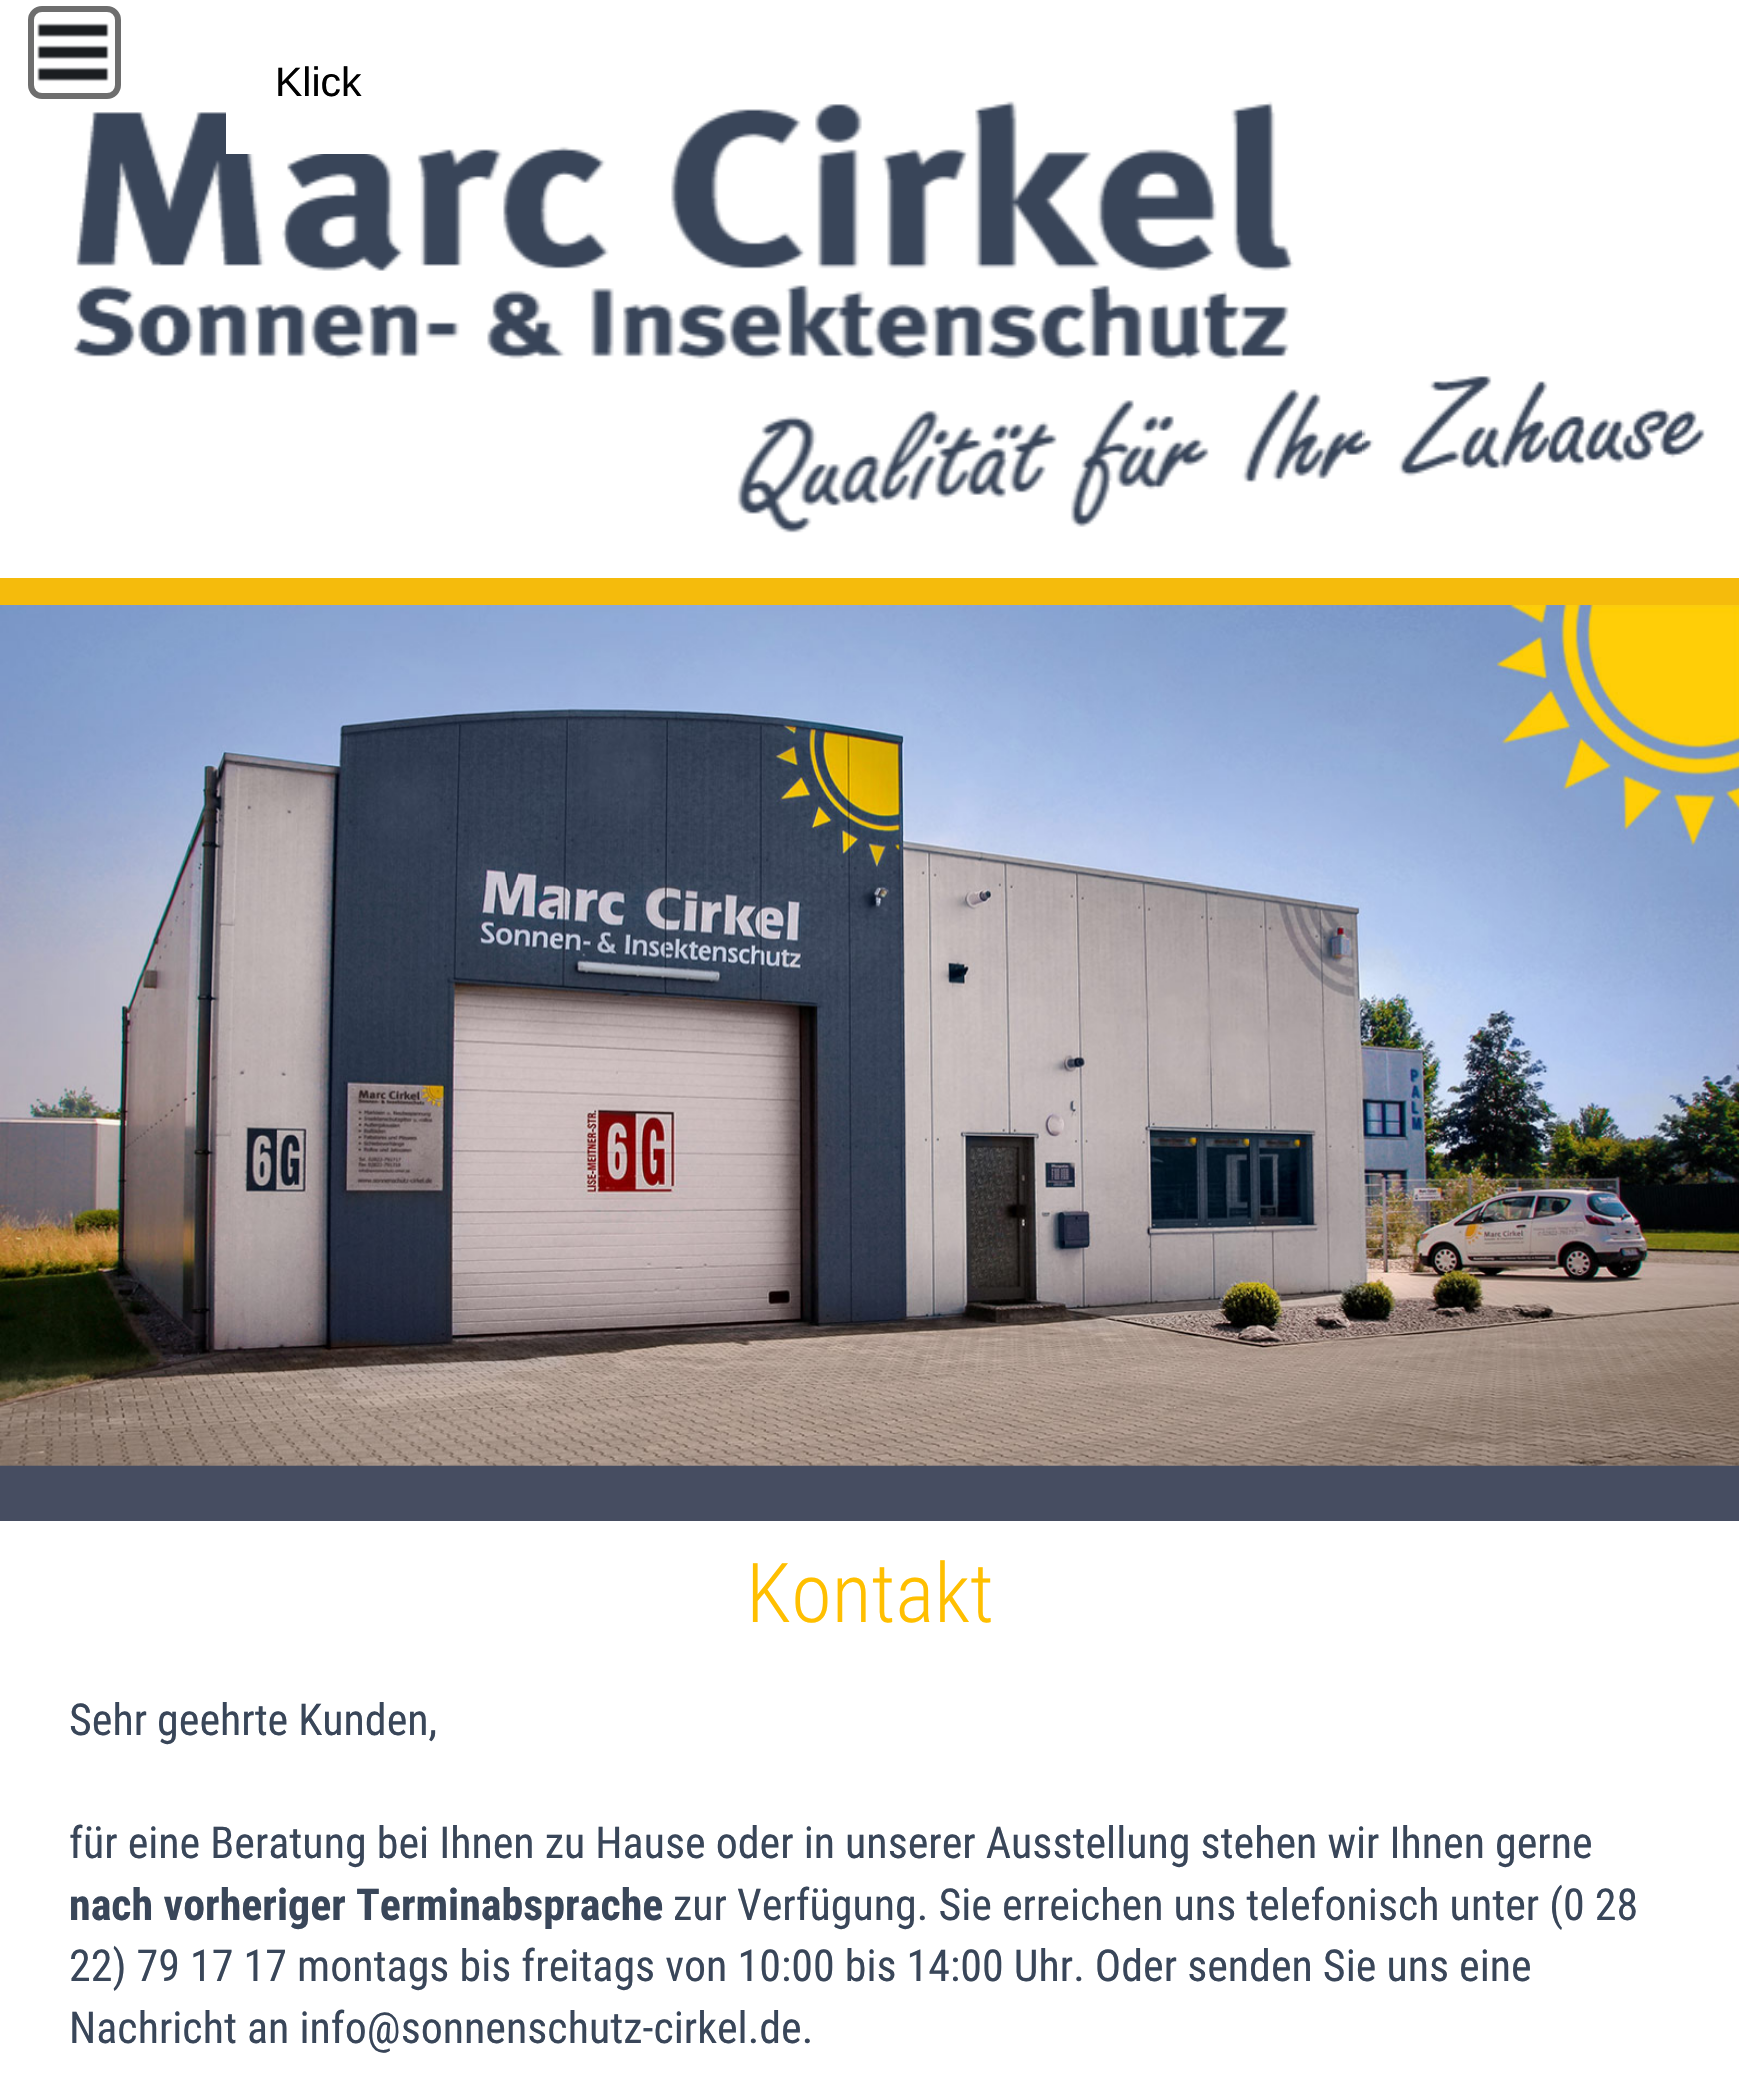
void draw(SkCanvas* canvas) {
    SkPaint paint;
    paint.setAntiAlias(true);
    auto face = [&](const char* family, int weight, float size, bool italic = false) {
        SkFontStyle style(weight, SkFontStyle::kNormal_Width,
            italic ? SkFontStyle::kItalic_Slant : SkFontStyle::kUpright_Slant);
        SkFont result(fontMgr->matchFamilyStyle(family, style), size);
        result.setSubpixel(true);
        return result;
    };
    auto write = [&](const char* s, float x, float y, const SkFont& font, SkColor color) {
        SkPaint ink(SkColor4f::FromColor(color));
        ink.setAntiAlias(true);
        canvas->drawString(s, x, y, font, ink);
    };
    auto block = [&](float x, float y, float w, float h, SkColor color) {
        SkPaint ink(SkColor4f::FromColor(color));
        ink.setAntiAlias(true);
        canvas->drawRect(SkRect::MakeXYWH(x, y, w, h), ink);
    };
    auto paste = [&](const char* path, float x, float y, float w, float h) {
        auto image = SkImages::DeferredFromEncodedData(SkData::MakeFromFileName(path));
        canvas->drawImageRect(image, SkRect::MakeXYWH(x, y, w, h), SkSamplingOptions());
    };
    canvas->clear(SK_ColorWHITE);
    paste("pic1.png", 37, 23, 72, 59);
    paint.setStyle(SkPaint::kStroke_Style);
    paint.setStrokeWidth(6);
    paint.setColor(SkColorSetRGB(110, 110, 110));
    canvas->drawRoundRect(SkRect::MakeXYWH(31, 9, 87, 87), 11, 11, paint);
    paste("pic2.png", 73, 101, 1632, 432);
    block(226, 112, 150, 42, SK_ColorWHITE);
    auto kFont1 = face("Liberation Sans", 400, 41);
    write("Klick", 275, 96, kFont1, SK_ColorBLACK);
    block(0, 1465, 1739, 56, SkColorSetRGB(70, 77, 97));
    block(0, 578, 1739, 27, SkColorSetRGB(245, 187, 12));
    paste("pic3.png", 0, 605, 1739, 861);
    auto kFont2 = face("Roboto Condensed", 300, 82.5f);
    write("Kontakt", 746, 1622, kFont2, SkColorSetRGB(255, 191, 0));
    auto kFont3 = face("Roboto Condensed", 400, 44);
    write("Sehr geehrte Kunden,", 69, 1735, kFont3, SkColorSetRGB(57, 70, 89));
    write("für eine Beratung bei Ihnen zu Hause oder in unserer Ausstellung stehen wir Ihnen gerne", 69, 1858, kFont3, SkColorSetRGB(57, 70, 89));
    auto kFont4 = face("Roboto Condensed", 700, 44);
    write("nach vorheriger Terminabsprache", 69, 1920, kFont4, SkColorSetRGB(57, 70, 89));
    write("zur Verfügung. Sie erreichen uns telefonisch unter (0 28", 673, 1920, kFont3, SkColorSetRGB(57, 70, 89));
    write("22) 79 17 17 montags bis freitags von 10:00 bis 14:00 Uhr. Oder senden Sie uns eine", 69, 1981, kFont3, SkColorSetRGB(57, 70, 89));
    write("Nachricht an info@sonnenschutz-cirkel.de.", 69, 2043, kFont3, SkColorSetRGB(57, 70, 89));
}
